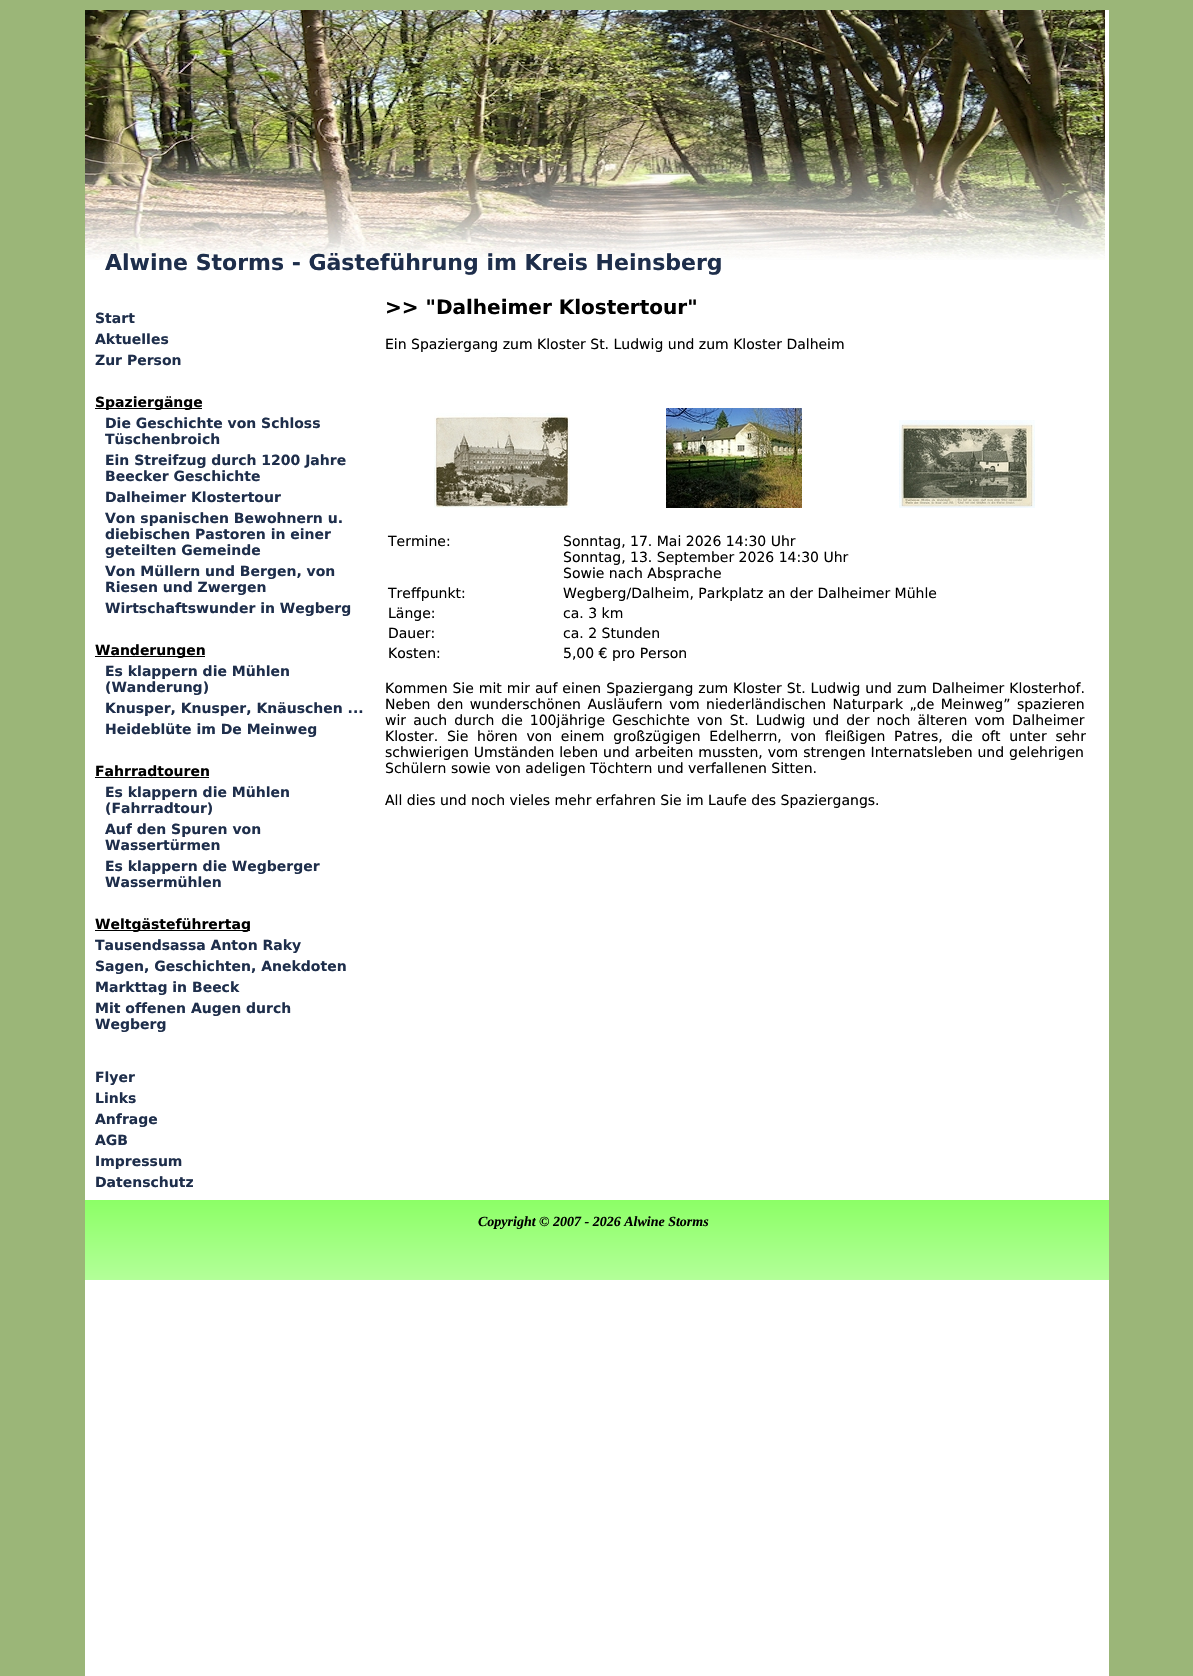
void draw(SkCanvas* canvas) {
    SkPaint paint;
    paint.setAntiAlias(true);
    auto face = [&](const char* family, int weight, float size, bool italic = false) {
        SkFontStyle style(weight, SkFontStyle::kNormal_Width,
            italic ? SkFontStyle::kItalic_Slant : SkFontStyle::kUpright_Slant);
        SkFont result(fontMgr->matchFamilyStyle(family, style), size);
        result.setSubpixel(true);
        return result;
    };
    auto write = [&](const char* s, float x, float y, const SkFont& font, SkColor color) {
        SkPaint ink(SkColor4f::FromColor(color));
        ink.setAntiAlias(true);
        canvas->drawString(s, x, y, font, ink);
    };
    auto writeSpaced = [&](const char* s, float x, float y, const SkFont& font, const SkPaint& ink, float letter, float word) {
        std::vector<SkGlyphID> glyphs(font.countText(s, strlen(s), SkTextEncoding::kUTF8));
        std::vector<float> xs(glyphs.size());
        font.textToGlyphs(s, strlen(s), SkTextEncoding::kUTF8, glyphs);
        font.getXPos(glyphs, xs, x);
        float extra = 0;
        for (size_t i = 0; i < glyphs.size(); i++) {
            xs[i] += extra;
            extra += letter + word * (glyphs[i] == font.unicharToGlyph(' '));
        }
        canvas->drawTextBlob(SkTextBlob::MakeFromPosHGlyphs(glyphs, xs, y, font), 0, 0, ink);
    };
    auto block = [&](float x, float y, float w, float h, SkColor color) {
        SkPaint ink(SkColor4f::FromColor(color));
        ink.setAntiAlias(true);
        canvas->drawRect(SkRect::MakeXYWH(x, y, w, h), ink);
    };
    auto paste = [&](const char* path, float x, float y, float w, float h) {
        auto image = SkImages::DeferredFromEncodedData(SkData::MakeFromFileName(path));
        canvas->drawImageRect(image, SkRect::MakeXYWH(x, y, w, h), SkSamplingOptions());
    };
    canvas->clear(SkColorSetRGB(155, 182, 120));
    block(85, 10, 1024, 1666, SK_ColorWHITE);
    paste("pic1.png", 85, 10, 1020, 250);
    auto kFont1 = face("DejaVu Sans", 700, 22);
    write("Alwine Storms - Gästeführung im Kreis Heinsberg", 105, 270, kFont1, SkColorSetRGB(30, 46, 75));
    auto kFont2 = face("DejaVu Sans", 700, 14);
    write("Start", 95, 323, kFont2, SkColorSetRGB(30, 46, 75));
    write("Aktuelles", 95, 344, kFont2, SkColorSetRGB(30, 46, 75));
    write("Zur Person", 95, 365, kFont2, SkColorSetRGB(30, 46, 75));
    block(95, 408, 107, 1, SK_ColorBLACK);
    write("Spaziergänge", 95, 407, kFont2, SK_ColorBLACK);
    write("Die Geschichte von Schloss", 105, 428, kFont2, SkColorSetRGB(30, 46, 75));
    write("Tüschenbroich", 105, 444, kFont2, SkColorSetRGB(30, 46, 75));
    write("Ein Streifzug durch 1200 Jahre", 105, 465, kFont2, SkColorSetRGB(30, 46, 75));
    write("Beecker Geschichte", 105, 481, kFont2, SkColorSetRGB(30, 46, 75));
    write("Dalheimer Klostertour", 105, 502, kFont2, SkColorSetRGB(30, 46, 75));
    write("Von spanischen Bewohnern u.", 105, 523, kFont2, SkColorSetRGB(30, 46, 75));
    write("diebischen Pastoren in einer", 105, 539, kFont2, SkColorSetRGB(30, 46, 75));
    write("geteilten Gemeinde", 105, 555, kFont2, SkColorSetRGB(30, 46, 75));
    write("Von Müllern und Bergen, von", 105, 576, kFont2, SkColorSetRGB(30, 46, 75));
    write("Riesen und Zwergen", 105, 592, kFont2, SkColorSetRGB(30, 46, 75));
    write("Wirtschaftswunder in Wegberg", 105, 613, kFont2, SkColorSetRGB(30, 46, 75));
    block(95, 656, 110, 1, SK_ColorBLACK);
    write("Wanderungen", 95, 655, kFont2, SK_ColorBLACK);
    write("Es klappern die Mühlen", 105, 676, kFont2, SkColorSetRGB(30, 46, 75));
    write("(Wanderung)", 105, 692, kFont2, SkColorSetRGB(30, 46, 75));
    write("Knusper, Knusper, Knäuschen ...", 105, 713, kFont2, SkColorSetRGB(30, 46, 75));
    write("Heideblüte im De Meinweg", 105, 734, kFont2, SkColorSetRGB(30, 46, 75));
    write("Fahrradtouren", 95, 776, kFont2, SK_ColorBLACK);
    block(95, 777, 114, 1, SK_ColorBLACK);
    write("Es klappern die Mühlen", 105, 797, kFont2, SkColorSetRGB(30, 46, 75));
    write("(Fahrradtour)", 105, 813, kFont2, SkColorSetRGB(30, 46, 75));
    write("Auf den Spuren von", 105, 834, kFont2, SkColorSetRGB(30, 46, 75));
    write("Wassertürmen", 105, 850, kFont2, SkColorSetRGB(30, 46, 75));
    write("Es klappern die Wegberger", 105, 871, kFont2, SkColorSetRGB(30, 46, 75));
    write("Wassermühlen", 105, 887, kFont2, SkColorSetRGB(30, 46, 75));
    block(95, 930, 155, 1, SK_ColorBLACK);
    write("Weltgästeführertag", 95, 929, kFont2, SK_ColorBLACK);
    write("Tausendsassa Anton Raky", 95, 950, kFont2, SkColorSetRGB(30, 46, 75));
    write("Sagen, Geschichten, Anekdoten", 95, 971, kFont2, SkColorSetRGB(30, 46, 75));
    write("Markttag in Beeck", 95, 992, kFont2, SkColorSetRGB(30, 46, 75));
    write("Mit offenen Augen durch", 95, 1013, kFont2, SkColorSetRGB(30, 46, 75));
    write("Wegberg", 95, 1029, kFont2, SkColorSetRGB(30, 46, 75));
    write("Flyer", 95, 1082, kFont2, SkColorSetRGB(30, 46, 75));
    write("Links", 95, 1103, kFont2, SkColorSetRGB(30, 46, 75));
    write("Anfrage", 95, 1124, kFont2, SkColorSetRGB(30, 46, 75));
    write("AGB", 95, 1145, kFont2, SkColorSetRGB(30, 46, 75));
    write("Impressum", 95, 1166, kFont2, SkColorSetRGB(30, 46, 75));
    write("Datenschutz", 95, 1187, kFont2, SkColorSetRGB(30, 46, 75));
    auto kFont3 = face("DejaVu Sans", 700, 20);
    write(">> \"Dalheimer Klostertour\"", 385, 314, kFont3, SK_ColorBLACK);
    auto kFont4 = face("DejaVu Sans", 400, 14);
    write("Ein Spaziergang zum Kloster St. Ludwig und zum Kloster Dalheim", 385, 349, kFont4, SK_ColorBLACK);
    paste("pic2.png", 434, 413, 136, 95);
    paste("pic3.png", 666, 408, 136, 100);
    paste("pic4.png", 899, 420, 136, 88);
    write("Termine:", 388, 546, kFont4, SK_ColorBLACK);
    write("Sonntag, 17. Mai 2026 14:30 Uhr", 563, 546, kFont4, SK_ColorBLACK);
    write("Sonntag, 13. September 2026 14:30 Uhr", 563, 562, kFont4, SK_ColorBLACK);
    write("Sowie nach Absprache", 563, 578, kFont4, SK_ColorBLACK);
    write("Treffpunkt:", 388, 598, kFont4, SK_ColorBLACK);
    write("Wegberg/Dalheim, Parkplatz an der Dalheimer Mühle", 563, 598, kFont4, SK_ColorBLACK);
    write("Länge:", 388, 618, kFont4, SK_ColorBLACK);
    write("ca. 3 km", 563, 618, kFont4, SK_ColorBLACK);
    write("Dauer:", 388, 638, kFont4, SK_ColorBLACK);
    write("ca. 2 Stunden", 563, 638, kFont4, SK_ColorBLACK);
    write("Kosten:", 388, 658, kFont4, SK_ColorBLACK);
    write("5,00 € pro Person", 563, 658, kFont4, SK_ColorBLACK);
    paint.setColor(SK_ColorBLACK);
    writeSpaced("Kommen Sie mit mir auf einen Spaziergang zum Kloster St. Ludwig und zum Dalheimer Klosterhof.", 385, 693, kFont4, paint, 0, 0.5f);
    writeSpaced("Neben den wunderschönen Ausläufern vom niederländischen Naturpark „de Meinweg” spazieren", 385, 709, kFont4, paint, 0, 2);
    writeSpaced("wir auch durch die 100jährige Geschichte von St. Ludwig und der noch älteren vom Dalheimer", 385, 725, kFont4, paint, 0, 2.6f);
    writeSpaced("Kloster. Sie hören von einem großzügigen Edelherrn, von fleißigen Patres, die oft unter sehr", 385, 741, kFont4, paint, 0, 4.25f);
    writeSpaced("schwierigen Umständen leben und arbeiten mussten, vom strengen Internatsleben und gelehrigen", 385, 757, kFont4, paint, 0, 0.5f);
    write("Schülern sowie von adeligen Töchtern und verfallenen Sitten.", 385, 773, kFont4, SK_ColorBLACK);
    write("All dies und noch vieles mehr erfahren Sie im Laufe des Spaziergangs.", 385, 805, kFont4, SK_ColorBLACK);
    {
        const SkColor colors[] = {SkColorSetRGB(140, 255, 102), SkColorSetRGB(179, 255, 153)};
        const float stops[] = {0, 1};
        const SkPoint ends[] = {{597, 1200}, {597, 1280}};
        paint.setShader(SkGradientShader::MakeLinear(ends, colors, stops, 2, SkTileMode::kClamp));
        paint.setAlpha(255);
    }
    canvas->drawRect(SkRect::MakeXYWH(85, 1200, 1024, 80), paint);
    auto kFont5 = face("Liberation Serif", 700, 14, true);
    write("Copyright © 2007 - 2026 Alwine Storms", 478, 1226, kFont5, SK_ColorBLACK);
}
